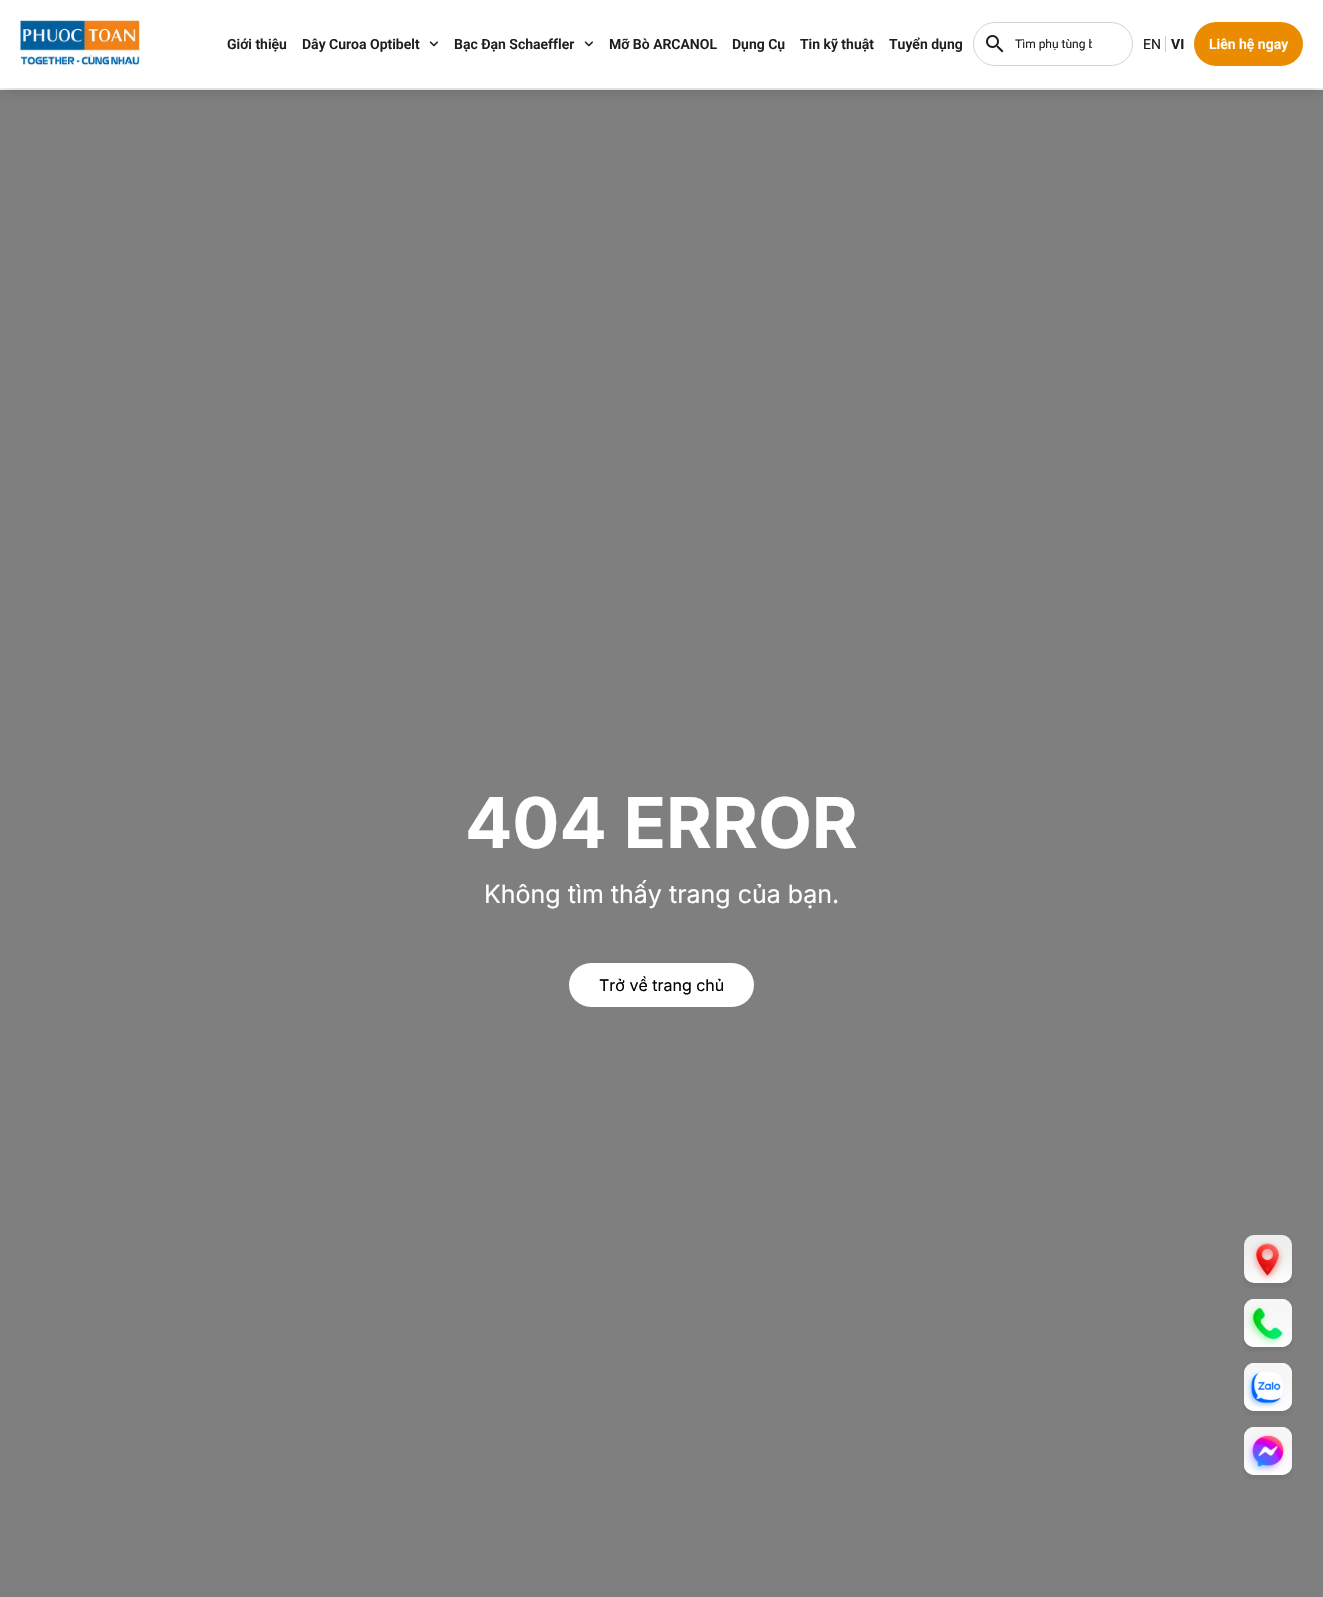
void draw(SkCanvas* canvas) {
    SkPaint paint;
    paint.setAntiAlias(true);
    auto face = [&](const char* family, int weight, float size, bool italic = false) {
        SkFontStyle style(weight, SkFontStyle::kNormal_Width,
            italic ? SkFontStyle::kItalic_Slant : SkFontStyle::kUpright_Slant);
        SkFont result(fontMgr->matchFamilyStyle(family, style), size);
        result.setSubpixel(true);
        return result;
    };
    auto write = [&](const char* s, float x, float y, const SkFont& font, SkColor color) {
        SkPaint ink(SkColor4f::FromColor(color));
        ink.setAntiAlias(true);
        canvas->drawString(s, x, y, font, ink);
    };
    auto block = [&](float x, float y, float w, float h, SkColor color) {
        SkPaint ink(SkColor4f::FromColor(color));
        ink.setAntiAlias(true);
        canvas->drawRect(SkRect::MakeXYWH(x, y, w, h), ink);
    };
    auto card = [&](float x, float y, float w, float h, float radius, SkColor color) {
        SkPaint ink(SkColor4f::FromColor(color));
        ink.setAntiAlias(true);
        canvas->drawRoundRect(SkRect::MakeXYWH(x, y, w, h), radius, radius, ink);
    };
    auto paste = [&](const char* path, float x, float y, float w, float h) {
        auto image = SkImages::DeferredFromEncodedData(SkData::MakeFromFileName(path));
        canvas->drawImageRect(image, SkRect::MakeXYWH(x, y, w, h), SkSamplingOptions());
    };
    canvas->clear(SkColorSetRGB(249, 250, 251));
    block(0, 90, 1323, 1507, SkColorSetRGB(127, 127, 127));
    paint.setColor(SkColorSetARGB(38, 0, 0, 0));
    paint.setMaskFilter(SkMaskFilter::MakeBlur(kNormal_SkBlurStyle, 6.5f));
    canvas->drawRect(SkRect::MakeXYWH(0, 3, 1323, 88), paint);
    paint.setMaskFilter(nullptr);
    block(0, 0, 1323, 88, SK_ColorWHITE);
    paste("pic1.png", 20, 20, 120, 46);
    auto kFont1 = face("Roboto", 600, 14);
    write("Giới thiệu", 227, 49, kFont1, SkColorSetRGB(30, 30, 30));
    write("Dây Curoa Optibelt", 302, 49, kFont1, SkColorSetRGB(30, 30, 30));
    paste("pic2.png", 429, 41, 9, 6);
    write("Bạc Đạn Schaeffler", 454, 49, kFont1, SkColorSetRGB(30, 30, 30));
    paste("pic2.png", 584, 41, 9, 6);
    write("Mỡ Bò ARCANOL", 609, 49, kFont1, SkColorSetRGB(30, 30, 30));
    write("Dụng Cụ", 732, 49, kFont1, SkColorSetRGB(30, 30, 30));
    write("Tin kỹ thuật", 800, 49, kFont1, SkColorSetRGB(30, 30, 30));
    write("Tuyển dụng", 889, 49, kFont1, SkColorSetRGB(30, 30, 30));
    paint.setStyle(SkPaint::kStroke_Style);
    paint.setStrokeWidth(1);
    paint.setColor(SkColorSetRGB(208, 213, 221));
    canvas->drawRoundRect(SkRect::MakeXYWH(973.5f, 22.5f, 159, 43), 21.5f, 21.5f, paint);
    paste("pic3.png", 986, 35, 18, 18);
    canvas->save();
    canvas->clipRect(SkRect::MakeXYWH(1015, 37, 77, 14));
    auto kFont2 = face("Roboto", 400, 12);
    write("Tìm phụ tùng b", 1015, 48, kFont2, SkColorSetRGB(30, 30, 30));
    canvas->restore();
    auto kFont3 = face("Roboto", 400, 14);
    write("EN", 1143, 49, kFont3, SkColorSetRGB(30, 30, 30));
    auto kFont4 = face("Roboto", 700, 14);
    write("VI", 1171, 49, kFont4, SkColorSetRGB(30, 30, 30));
    block(1165, 36, 1, 16, SkColorSetRGB(204, 204, 204));
    card(1194, 22, 109, 44, 22, SkColorSetRGB(235, 139, 0));
    write("Liên hệ ngay", 1209, 49, kFont1, SK_ColorWHITE);
    auto kFont5 = face("Inter", 700, 70);
    write("404 ERROR", 465, 848, kFont5, SK_ColorWHITE);
    auto kFont6 = face("Inter", 400, 25);
    write("Không tìm thấy trang của bạn.", 484, 903, kFont6, SK_ColorWHITE);
    card(569, 963, 185, 44, 22, SK_ColorWHITE);
    auto kFont7 = face("Inter", 400, 16);
    write("Trở về trang chủ", 599, 991, kFont7, SK_ColorBLACK);
    paste("pic4.png", 1243, 1235, 50, 53);
    paste("pic5.png", 1243, 1299, 50, 53);
    paste("pic6.png", 1243, 1363, 50, 53);
    paste("pic7.png", 1243, 1427, 50, 53);
}
